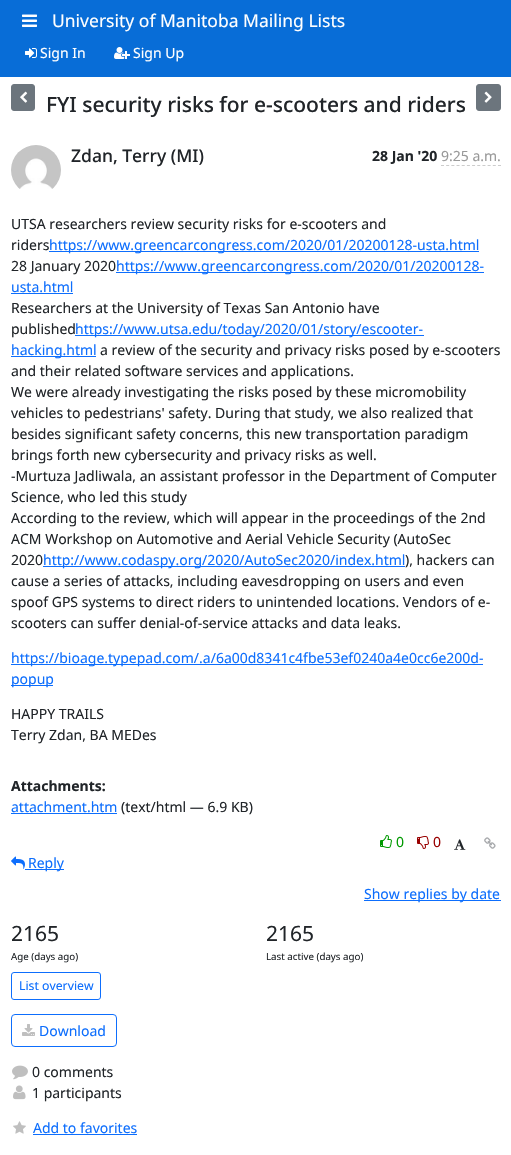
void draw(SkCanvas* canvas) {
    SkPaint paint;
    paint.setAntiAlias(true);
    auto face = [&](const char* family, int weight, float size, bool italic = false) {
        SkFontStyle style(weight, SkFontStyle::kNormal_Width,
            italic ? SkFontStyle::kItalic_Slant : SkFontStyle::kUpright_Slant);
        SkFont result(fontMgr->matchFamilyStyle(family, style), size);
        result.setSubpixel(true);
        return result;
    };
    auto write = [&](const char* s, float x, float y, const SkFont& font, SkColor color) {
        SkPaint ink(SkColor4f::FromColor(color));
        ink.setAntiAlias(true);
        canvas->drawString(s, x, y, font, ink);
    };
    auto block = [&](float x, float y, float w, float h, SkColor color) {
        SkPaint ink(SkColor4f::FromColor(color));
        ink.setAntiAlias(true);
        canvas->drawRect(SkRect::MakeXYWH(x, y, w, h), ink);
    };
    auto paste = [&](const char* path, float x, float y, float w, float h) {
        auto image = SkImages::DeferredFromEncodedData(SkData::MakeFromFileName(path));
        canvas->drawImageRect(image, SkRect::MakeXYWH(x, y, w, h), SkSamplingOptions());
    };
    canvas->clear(SK_ColorWHITE);
    block(0, 0, 511, 77, SkColorSetRGB(8, 109, 215));
    paste("pic1.png", 22, 14, 15, 13);
    auto kFont1 = face("Noto Sans", 400, 17.5f);
    write("University of Manitoba Mailing Lists", 52, 27, kFont1, SK_ColorWHITE);
    paste("pic2.png", 25, 48, 12, 10);
    auto kFont2 = face("Noto Sans", 400, 14);
    write("Sign In", 40, 58, kFont2, SK_ColorWHITE);
    paste("pic3.png", 114, 47, 16, 12);
    write("Sign Up", 133, 58, kFont2, SK_ColorWHITE);
    paint.setColor(SkColorSetRGB(108, 117, 125));
    canvas->drawRoundRect(SkRect::MakeXYWH(11.5f, 84.5f, 23, 26), 2.5f, 2.5f, paint);
    paint.setStyle(SkPaint::kStroke_Style);
    paint.setStrokeWidth(1);
    canvas->drawRoundRect(SkRect::MakeXYWH(11.5f, 84.5f, 23, 26), 2.5f, 2.5f, paint);
    paste("pic4.png", 20, 91, 8, 12);
    auto kFont3 = face("Noto Sans", 500, 21);
    write("FYI security risks for e-scooters and riders", 46, 112, kFont3, SkColorSetRGB(33, 37, 41));
    paint.setStyle(SkPaint::kFill_Style);
    canvas->drawRoundRect(SkRect::MakeXYWH(476.5f, 84.5f, 24, 26), 2.5f, 2.5f, paint);
    paint.setStyle(SkPaint::kStroke_Style);
    canvas->drawRoundRect(SkRect::MakeXYWH(476.5f, 84.5f, 24, 26), 2.5f, 2.5f, paint);
    paste("pic5.png", 484, 91, 8, 12);
    paste("pic6.png", 11, 145, 50, 44);
    auto kFont4 = face("Noto Sans", 500, 17.5f);
    write("Zdan, Terry (MI)", 71, 162, kFont4, SkColorSetRGB(33, 37, 41));
    auto kFont5 = face("Noto Sans", 700, 14);
    write("28 Jan '20", 372, 161, kFont5, SkColorSetRGB(33, 37, 41));
    write("9:25 a.m.", 441, 161, kFont2, SkColorSetRGB(153, 153, 153));
    paint.setColor(SkColorSetRGB(204, 204, 204));
    paint.setPathEffect(SkDashPathEffect::Make({{3, 2.18f}}, 0));
    canvas->drawPath(SkPathBuilder().moveTo(441, 165.5f).lineTo(501, 165.5f).detach(), paint);
    paint.setPathEffect(nullptr);
    write("UTSA researchers review security risks for e-scooters and", 11, 229, kFont2, SkColorSetRGB(33, 37, 41));
    write("riders", 11, 250, kFont2, SkColorSetRGB(33, 37, 41));
    block(49, 251, 430, 1, SkColorSetRGB(13, 110, 253));
    write("https://www.greencarcongress.com/2020/01/20200128-usta.html", 49, 250, kFont2, SkColorSetRGB(13, 110, 253));
    write("28 January 2020", 11, 271, kFont2, SkColorSetRGB(33, 37, 41));
    block(116, 272, 368, 1, SkColorSetRGB(13, 110, 253));
    write("https://www.greencarcongress.com/2020/01/20200128-", 116, 271, kFont2, SkColorSetRGB(13, 110, 253));
    write("usta.html", 11, 292, kFont2, SkColorSetRGB(13, 110, 253));
    block(11, 293, 62, 1, SkColorSetRGB(13, 110, 253));
    write("Researchers at the University of Texas San Antonio have", 11, 313, kFont2, SkColorSetRGB(33, 37, 41));
    write("published", 11, 334, kFont2, SkColorSetRGB(33, 37, 41));
    block(75, 335, 349, 1, SkColorSetRGB(13, 110, 253));
    write("https://www.utsa.edu/today/2020/01/story/escooter-", 75, 334, kFont2, SkColorSetRGB(13, 110, 253));
    block(11, 356, 85, 1, SkColorSetRGB(13, 110, 253));
    write("hacking.html", 11, 355, kFont2, SkColorSetRGB(13, 110, 253));
    write("a review of the security and privacy risks posed by e-scooters", 100, 355, kFont2, SkColorSetRGB(33, 37, 41));
    write("and their related software services and applications.", 11, 376, kFont2, SkColorSetRGB(33, 37, 41));
    write("We were already investigating the risks posed by these micromobility", 11, 397, kFont2, SkColorSetRGB(33, 37, 41));
    write("vehicles to pedestrians' safety. During that study, we also realized that", 11, 418, kFont2, SkColorSetRGB(33, 37, 41));
    write("besides significant safety concerns, this new transportation paradigm", 11, 439, kFont2, SkColorSetRGB(33, 37, 41));
    write("brings forth new cybersecurity and privacy risks as well.", 11, 460, kFont2, SkColorSetRGB(33, 37, 41));
    write("-Murtuza Jadliwala, an assistant professor in the Department of Computer", 11, 481, kFont2, SkColorSetRGB(33, 37, 41));
    write("Science, who led this study", 11, 502, kFont2, SkColorSetRGB(33, 37, 41));
    write("According to the review, which will appear in the proceedings of the 2nd", 11, 523, kFont2, SkColorSetRGB(33, 37, 41));
    write("ACM Workshop on Automotive and Aerial Vehicle Security (AutoSec", 11, 544, kFont2, SkColorSetRGB(33, 37, 41));
    write("2020", 11, 565, kFont2, SkColorSetRGB(33, 37, 41));
    block(43, 566, 362, 1, SkColorSetRGB(13, 110, 253));
    write("http://www.codaspy.org/2020/AutoSec2020/index.html", 43, 565, kFont2, SkColorSetRGB(13, 110, 253));
    write("), hackers can", 405, 565, kFont2, SkColorSetRGB(33, 37, 41));
    write("cause a series of attacks, including eavesdropping on users and even", 11, 586, kFont2, SkColorSetRGB(33, 37, 41));
    write("spoof GPS systems to direct riders to unintended locations. Vendors of e-", 11, 607, kFont2, SkColorSetRGB(33, 37, 41));
    write("scooters can suffer denial-of-service attacks and data leaks.", 11, 628, kFont2, SkColorSetRGB(33, 37, 41));
    block(11, 664, 472, 1, SkColorSetRGB(13, 110, 253));
    write("https://bioage.typepad.com/.a/6a00d8341c4fbe53ef0240a4e0cc6e200d-", 11, 663, kFont2, SkColorSetRGB(13, 110, 253));
    block(11, 685, 42, 1, SkColorSetRGB(13, 110, 253));
    write("popup", 11, 684, kFont2, SkColorSetRGB(13, 110, 253));
    write("HAPPY TRAILS", 11, 719, kFont2, SkColorSetRGB(33, 37, 41));
    write("Terry Zdan, BA MEDes", 11, 740, kFont2, SkColorSetRGB(33, 37, 41));
    write("Attachments:", 11, 791, kFont5, SkColorSetRGB(33, 37, 41));
    write("attachment.htm", 11, 812, kFont2, SkColorSetRGB(13, 110, 253));
    block(11, 813, 106, 1, SkColorSetRGB(13, 110, 253));
    write("(text/html — 6.9 KB)", 121, 812, kFont2, SkColorSetRGB(33, 37, 41));
    paste("pic7.png", 380, 835, 12, 13);
    write("0", 396, 847, kFont2, SkColorSetRGB(0, 153, 0));
    paste("pic8.png", 417, 836, 12, 13);
    write("0", 433, 847, kFont2, SkColorSetRGB(153, 0, 0));
    paste("pic9.png", 454, 839, 12, 11);
    paste("pic10.png", 484, 837, 12, 12);
    paste("pic11.png", 11, 856, 14, 13);
    block(25, 869, 39, 1, SkColorSetRGB(13, 110, 253));
    write("Reply", 28, 868, kFont2, SkColorSetRGB(13, 110, 253));
    block(364, 900, 137, 1, SkColorSetRGB(13, 110, 253));
    write("Show replies by date", 364, 899, kFont2, SkColorSetRGB(13, 110, 253));
    auto kFont6 = face("Noto Sans", 400, 21);
    write("2165", 11, 941, kFont6, SkColorSetRGB(33, 37, 41));
    auto kFont7 = face("Noto Sans", 400, 9.75f);
    write("Age (days ago)", 11, 960, kFont7, SkColorSetRGB(33, 37, 41));
    write("2165", 266, 941, kFont6, SkColorSetRGB(33, 37, 41));
    write("Last active (days ago)", 266, 960, kFont7, SkColorSetRGB(33, 37, 41));
    paint.setColor(SkColorSetRGB(13, 110, 253));
    canvas->drawRoundRect(SkRect::MakeXYWH(11.5f, 972.5f, 89, 27), 2.5f, 2.5f, paint);
    auto kFont8 = face("Noto Sans", 400, 12.25f);
    write("List overview", 19, 990, kFont8, SkColorSetRGB(13, 110, 253));
    canvas->drawRoundRect(SkRect::MakeXYWH(11.5f, 1014.5f, 105, 32), 3.5f, 3.5f, paint);
    paste("pic12.png", 22, 1024, 13, 12);
    write("Download", 39, 1036, kFont2, SkColorSetRGB(13, 110, 253));
    paste("pic13.png", 12, 1065, 16, 15);
    write("0 comments", 32, 1077, kFont2, SkColorSetRGB(33, 37, 41));
    paste("pic14.png", 13, 1085, 13, 15);
    write("1 participants", 32, 1098, kFont2, SkColorSetRGB(33, 37, 41));
    paste("pic15.png", 13, 1121, 13, 13);
    write("Add to favorites", 33, 1133, kFont2, SkColorSetRGB(13, 110, 253));
    block(33, 1134, 104, 1, SkColorSetRGB(13, 110, 253));
}
